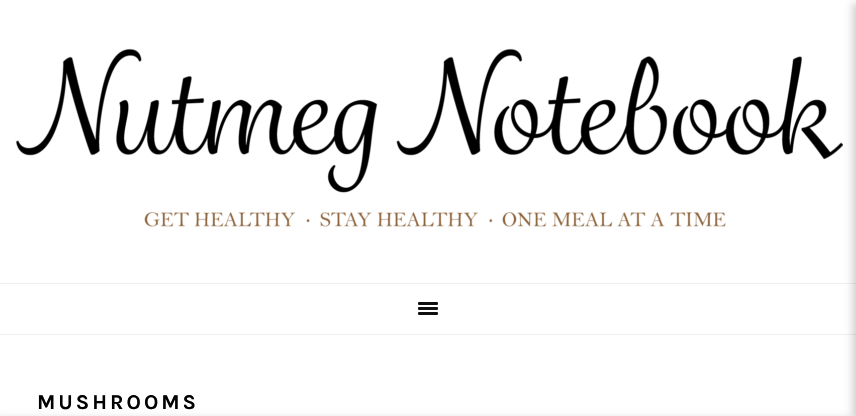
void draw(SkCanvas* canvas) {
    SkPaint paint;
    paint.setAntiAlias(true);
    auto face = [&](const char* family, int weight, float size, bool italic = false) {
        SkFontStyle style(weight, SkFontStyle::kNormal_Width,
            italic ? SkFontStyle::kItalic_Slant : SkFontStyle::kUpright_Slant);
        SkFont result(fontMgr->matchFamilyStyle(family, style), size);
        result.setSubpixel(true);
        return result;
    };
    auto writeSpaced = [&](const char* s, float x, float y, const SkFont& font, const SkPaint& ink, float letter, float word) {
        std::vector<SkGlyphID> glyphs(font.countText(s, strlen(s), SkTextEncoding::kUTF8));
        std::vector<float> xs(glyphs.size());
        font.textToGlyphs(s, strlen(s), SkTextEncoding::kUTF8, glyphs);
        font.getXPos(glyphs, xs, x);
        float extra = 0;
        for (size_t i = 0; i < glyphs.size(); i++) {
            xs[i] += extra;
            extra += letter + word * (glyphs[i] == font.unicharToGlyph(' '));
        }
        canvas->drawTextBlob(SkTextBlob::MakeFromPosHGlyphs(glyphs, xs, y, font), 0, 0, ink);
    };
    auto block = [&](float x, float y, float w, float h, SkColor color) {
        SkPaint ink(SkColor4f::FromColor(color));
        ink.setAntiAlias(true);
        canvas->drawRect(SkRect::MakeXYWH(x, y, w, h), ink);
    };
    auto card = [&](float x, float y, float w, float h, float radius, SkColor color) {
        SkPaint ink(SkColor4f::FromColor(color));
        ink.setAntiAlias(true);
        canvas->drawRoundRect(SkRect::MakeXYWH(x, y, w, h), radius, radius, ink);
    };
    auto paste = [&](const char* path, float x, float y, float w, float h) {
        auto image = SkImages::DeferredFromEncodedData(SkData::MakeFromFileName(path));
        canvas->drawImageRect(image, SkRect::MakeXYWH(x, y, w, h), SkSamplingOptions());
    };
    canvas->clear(SK_ColorWHITE);
    paste("pic1.png", 15, 48, 828, 179);
    block(0, 283, 856, 1, SkColorSetRGB(238, 238, 238));
    block(0, 334, 856, 1, SkColorSetRGB(238, 238, 238));
    card(418, 307, 20, 3, 1, SkColorSetRGB(16, 16, 16));
    card(418, 302, 20, 3, 1, SkColorSetRGB(16, 16, 16));
    card(418, 312, 20, 3, 1, SkColorSetRGB(16, 16, 16));
    auto kFont1 = face("Karla", 700, 21);
    paint.setColor(SkColorSetRGB(1, 1, 1));
    writeSpaced("MUSHROOMS", 37, 409, kFont1, paint, 3, 0);
    paint.setColor(SkColorSetARGB(51, 0, 0, 0));
    paint.setMaskFilter(SkMaskFilter::MakeBlur(kNormal_SkBlurStyle, 4.5f));
    canvas->drawRect(SkRect::MakeXYWH(853, 3, 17, 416), paint);
    paint.setMaskFilter(nullptr);
    paint.setMaskFilter(SkMaskFilter::MakeBlur(kNormal_SkBlurStyle, 4.5f));
    canvas->drawRect(SkRect::MakeXYWH(-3, 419, 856, 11), paint);
    paint.setMaskFilter(nullptr);
}
